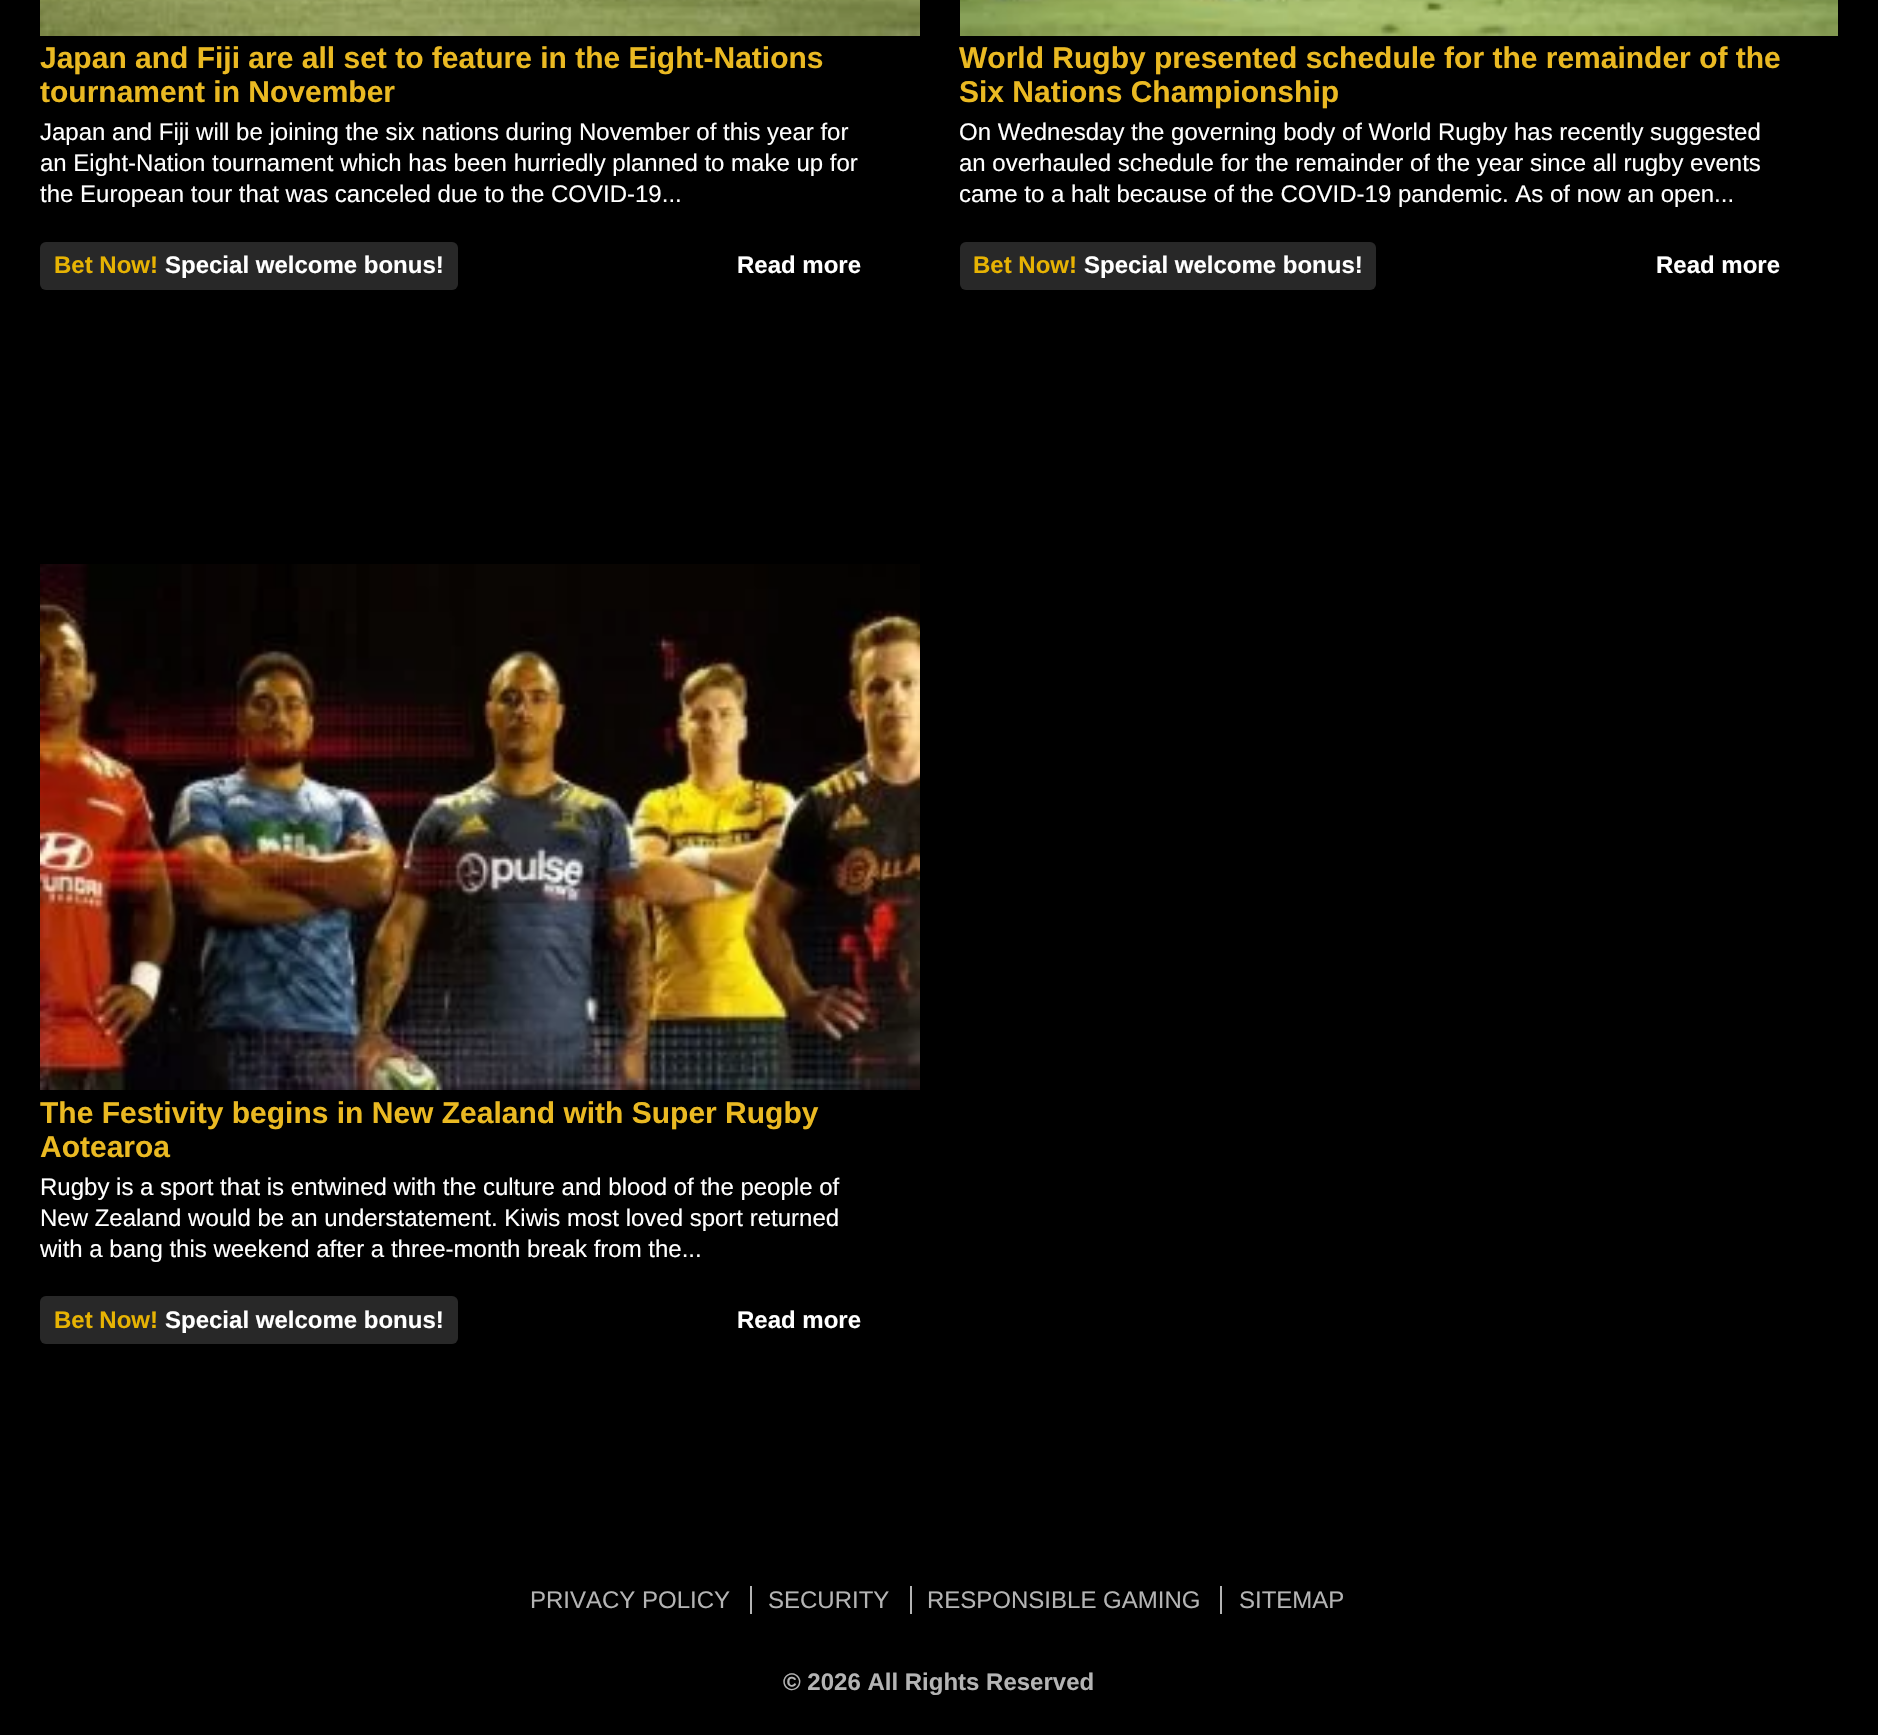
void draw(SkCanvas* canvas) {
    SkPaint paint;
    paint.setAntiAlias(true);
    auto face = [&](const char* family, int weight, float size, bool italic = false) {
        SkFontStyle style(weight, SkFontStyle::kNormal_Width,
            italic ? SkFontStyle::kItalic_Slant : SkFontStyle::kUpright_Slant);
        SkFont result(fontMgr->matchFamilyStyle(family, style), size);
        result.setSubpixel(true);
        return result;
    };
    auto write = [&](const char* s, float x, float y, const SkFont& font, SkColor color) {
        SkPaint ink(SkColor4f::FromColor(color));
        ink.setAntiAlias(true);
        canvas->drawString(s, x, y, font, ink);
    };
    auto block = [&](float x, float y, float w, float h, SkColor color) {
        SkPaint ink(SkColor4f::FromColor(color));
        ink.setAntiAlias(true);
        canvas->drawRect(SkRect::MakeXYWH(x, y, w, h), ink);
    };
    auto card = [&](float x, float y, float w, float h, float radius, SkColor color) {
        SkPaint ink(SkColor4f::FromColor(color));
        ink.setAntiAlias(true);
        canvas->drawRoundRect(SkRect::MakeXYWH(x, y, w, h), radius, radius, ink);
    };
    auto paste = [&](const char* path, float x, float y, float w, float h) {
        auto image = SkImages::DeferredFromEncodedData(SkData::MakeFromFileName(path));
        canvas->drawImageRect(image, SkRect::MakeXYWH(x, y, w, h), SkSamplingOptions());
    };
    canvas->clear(SK_ColorBLACK);
    paste("pic1.png", 40, 0, 880, 36);
    auto kFont1 = face("Liberation Sans", 700, 30);
    write("Japan and Fiji are all set to feature in the Eight-Nations", 40, 68, kFont1, SkColorSetRGB(234, 185, 34));
    write("tournament in November", 40, 102, kFont1, SkColorSetRGB(234, 185, 34));
    auto kFont2 = face("Liberation Sans", 400, 24);
    write("Japan and Fiji will be joining the six nations during November of this year for", 40, 140, kFont2, SK_ColorWHITE);
    write("an Eight-Nation tournament which has been hurriedly planned to make up for", 40, 171, kFont2, SK_ColorWHITE);
    write("the European tour that was canceled due to the COVID-19...", 40, 202, kFont2, SK_ColorWHITE);
    card(40, 242, 418, 48, 6, SkColorSetRGB(40, 40, 40));
    auto kFont3 = face("Liberation Sans", 700, 24);
    write("Bet Now!", 54, 273, kFont3, SkColorSetRGB(231, 179, 3));
    write("Special welcome bonus!", 165, 273, kFont3, SK_ColorWHITE);
    write("Read more", 737, 273, kFont3, SK_ColorWHITE);
    paste("pic2.png", 960, 0, 878, 36);
    write("World Rugby presented schedule for the remainder of the", 959, 68, kFont1, SkColorSetRGB(234, 185, 34));
    write("Six Nations Championship", 959, 102, kFont1, SkColorSetRGB(234, 185, 34));
    write("On Wednesday the governing body of World Rugby has recently suggested", 959, 140, kFont2, SK_ColorWHITE);
    write("an overhauled schedule for the remainder of the year since all rugby events", 959, 171, kFont2, SK_ColorWHITE);
    write("came to a halt because of the COVID-19 pandemic. As of now an open...", 959, 202, kFont2, SK_ColorWHITE);
    card(960, 242, 416, 48, 6, SkColorSetRGB(40, 40, 40));
    write("Bet Now!", 973, 273, kFont3, SkColorSetRGB(231, 179, 3));
    write("Special welcome bonus!", 1084, 273, kFont3, SK_ColorWHITE);
    write("Read more", 1656, 273, kFont3, SK_ColorWHITE);
    paste("pic3.png", 40, 564, 880, 526);
    write("The Festivity begins in New Zealand with Super Rugby", 40, 1123, kFont1, SkColorSetRGB(234, 185, 34));
    write("Aotearoa", 40, 1157, kFont1, SkColorSetRGB(234, 185, 34));
    write("Rugby is a sport that is entwined with the culture and blood of the people of", 40, 1195, kFont2, SK_ColorWHITE);
    write("New Zealand would be an understatement. Kiwis most loved sport returned", 40, 1226, kFont2, SK_ColorWHITE);
    write("with a bang this weekend after a three-month break from the...", 40, 1257, kFont2, SK_ColorWHITE);
    card(40, 1296, 418, 48, 6, SkColorSetRGB(40, 40, 40));
    write("Bet Now!", 54, 1328, kFont3, SkColorSetRGB(231, 179, 3));
    write("Special welcome bonus!", 165, 1328, kFont3, SK_ColorWHITE);
    write("Read more", 737, 1328, kFont3, SK_ColorWHITE);
    block(750, 1586, 2, 28, SkColorSetRGB(180, 180, 180));
    write("PRIVACY POLICY", 530, 1608, kFont2, SkColorSetRGB(180, 180, 180));
    block(910, 1586, 2, 28, SkColorSetRGB(180, 180, 180));
    write("SECURITY", 768, 1608, kFont2, SkColorSetRGB(180, 180, 180));
    block(1220, 1586, 2, 28, SkColorSetRGB(180, 180, 180));
    write("RESPONSIBLE GAMING", 927, 1608, kFont2, SkColorSetRGB(180, 180, 180));
    write("SITEMAP", 1239, 1608, kFont2, SkColorSetRGB(180, 180, 180));
    write("© 2026 All Rights Reserved", 783, 1690, kFont3, SkColorSetRGB(180, 180, 180));
}
